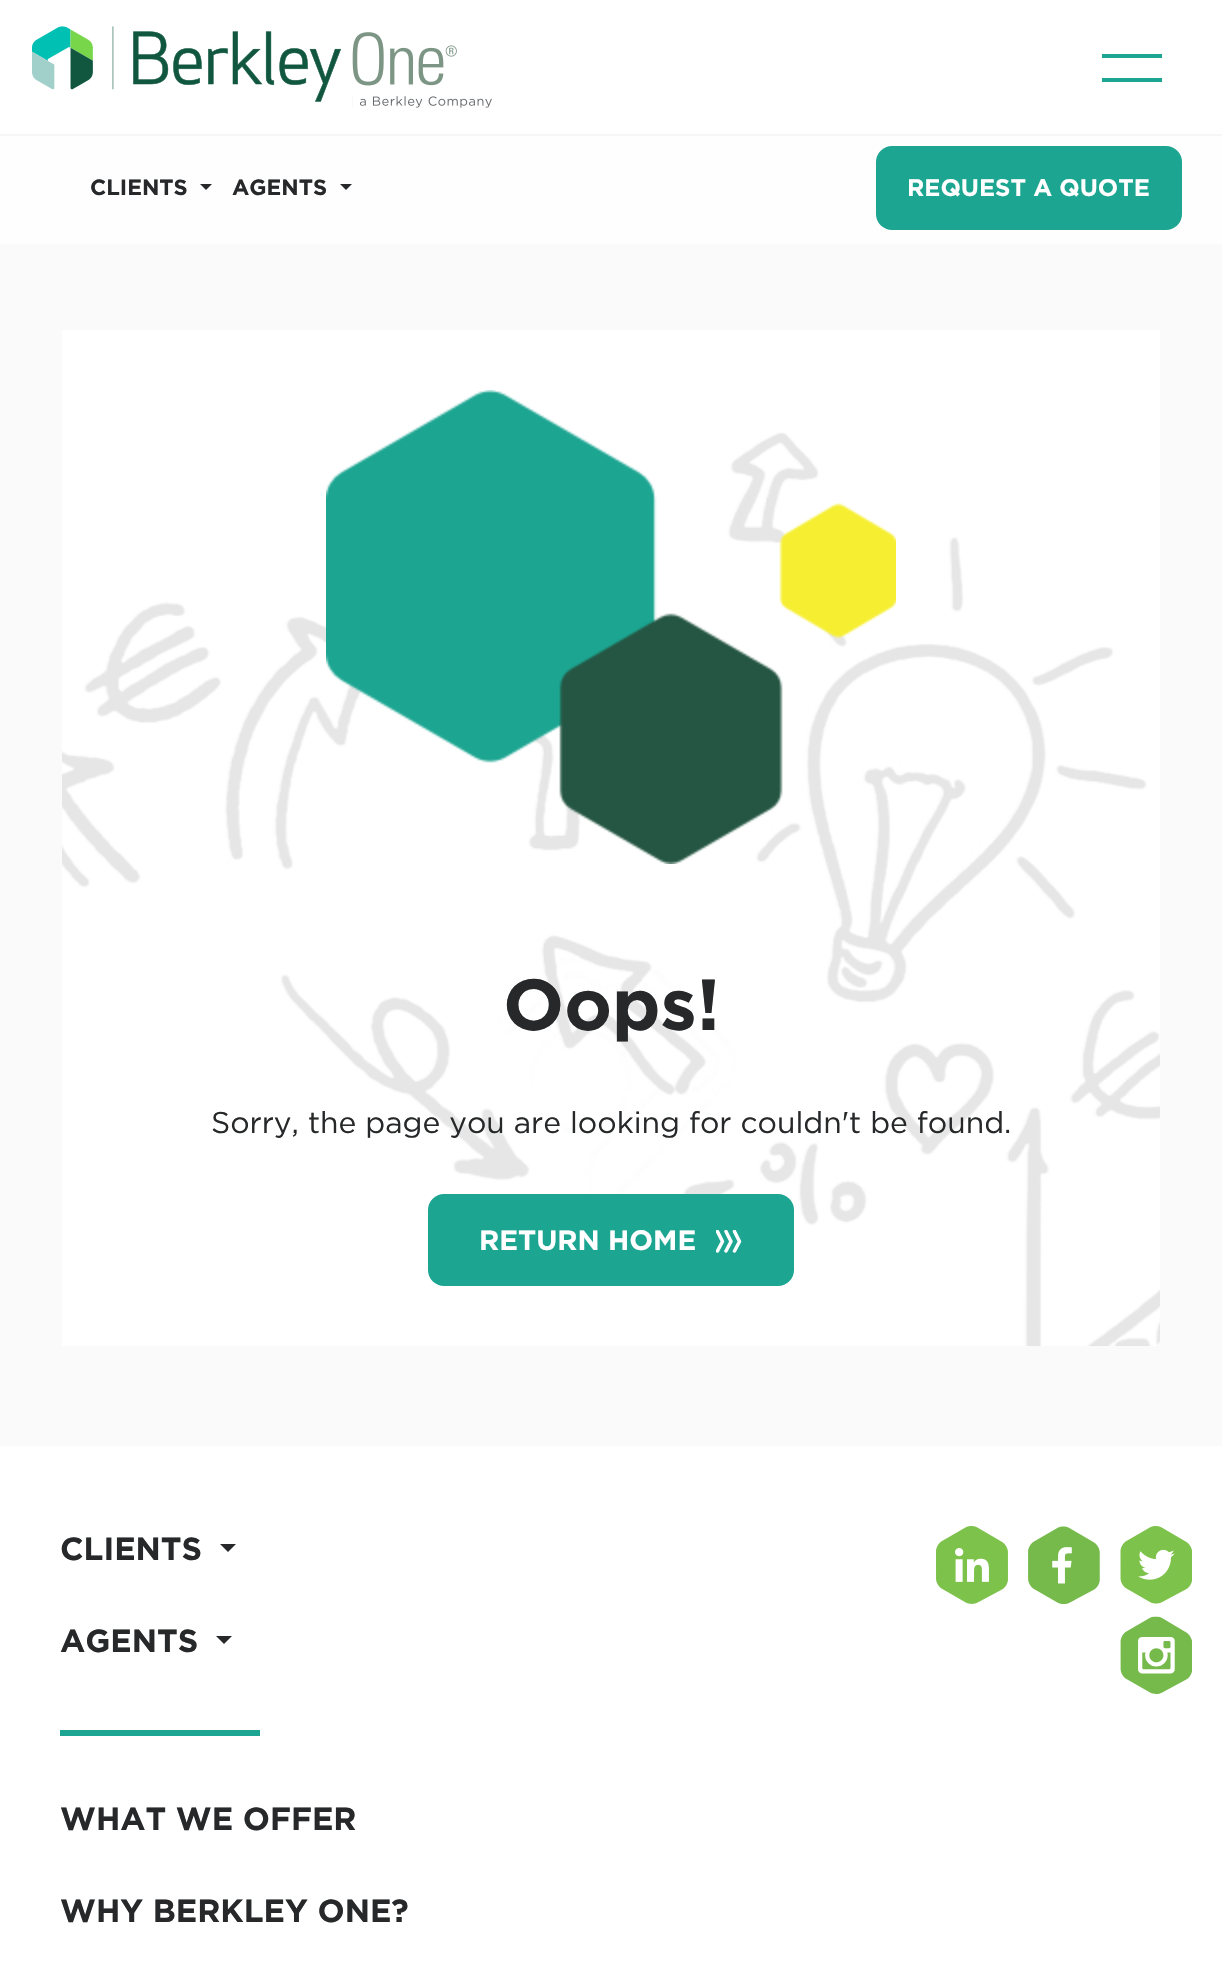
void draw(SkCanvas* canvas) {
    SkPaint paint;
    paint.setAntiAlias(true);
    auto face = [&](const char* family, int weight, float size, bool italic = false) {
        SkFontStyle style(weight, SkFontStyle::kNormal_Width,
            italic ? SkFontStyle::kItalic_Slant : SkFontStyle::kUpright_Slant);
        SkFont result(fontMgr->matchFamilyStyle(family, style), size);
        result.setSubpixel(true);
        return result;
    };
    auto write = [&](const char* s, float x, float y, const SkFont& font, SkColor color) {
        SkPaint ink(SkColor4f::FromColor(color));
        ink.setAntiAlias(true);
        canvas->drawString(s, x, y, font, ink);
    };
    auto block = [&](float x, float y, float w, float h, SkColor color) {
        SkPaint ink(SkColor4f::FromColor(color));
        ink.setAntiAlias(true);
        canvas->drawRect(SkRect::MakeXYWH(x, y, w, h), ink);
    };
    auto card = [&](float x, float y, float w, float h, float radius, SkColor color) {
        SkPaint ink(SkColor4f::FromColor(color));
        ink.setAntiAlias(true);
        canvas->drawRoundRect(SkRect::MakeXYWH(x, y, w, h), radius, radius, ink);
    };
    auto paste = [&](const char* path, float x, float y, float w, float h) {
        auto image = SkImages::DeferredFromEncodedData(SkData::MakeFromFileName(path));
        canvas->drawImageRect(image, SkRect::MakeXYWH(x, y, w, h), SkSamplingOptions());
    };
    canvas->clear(SkColorSetRGB(250, 250, 250));
    block(0, 136, 1222, 108, SkColorSetRGB(254, 254, 254));
    block(0, 0, 1222, 134, SK_ColorWHITE);
    block(0, 134, 1222, 2, SkColorSetRGB(246, 246, 246));
    paste("pic1.png", 32, 26, 460, 82);
    block(1102, 54, 60, 4, SkColorSetRGB(28, 165, 145));
    block(1102, 78, 60, 4, SkColorSetRGB(28, 165, 145));
    auto kFont1 = face("Gotham", 700, 22);
    write("CLIENTS", 90, 195, kFont1, SkColorSetRGB(38, 40, 41));
    paint.setColor(SkColorSetRGB(38, 40, 41));
    canvas->drawPath(SkPathBuilder().moveTo(200, 184).lineTo(212, 184).lineTo(206, 190).close().detach(), paint);
    write("AGENTS", 232, 195, kFont1, SkColorSetRGB(38, 40, 41));
    canvas->drawPath(SkPathBuilder().moveTo(340, 184).lineTo(352, 184).lineTo(346, 190).close().detach(), paint);
    card(876, 146, 306, 84, 16, SkColorSetRGB(28, 165, 145));
    auto kFont2 = face("Gotham", 700, 24);
    write("REQUEST A QUOTE", 907, 196, kFont2, SK_ColorWHITE);
    block(62, 330, 1098, 1016, SK_ColorWHITE);
    paste("pic2.png", 62, 432, 1098, 914);
    paste("pic3.png", 326, 390, 570, 474);
    auto kFont3 = face("Gotham", 700, 72);
    write("Oops!", 503, 1030, kFont3, SkColorSetRGB(38, 40, 41));
    auto kFont4 = face("Gotham", 400, 30);
    write("Sorry, the page you are looking for couldn't be found.", 211, 1133, kFont4, SkColorSetRGB(38, 40, 41));
    card(428, 1194, 366, 92, 16, SkColorSetRGB(28, 165, 145));
    auto kFont5 = face("Gotham", 700, 28);
    write("RETURN HOME", 479, 1250, kFont5, SK_ColorWHITE);
    canvas->save();
    canvas->clipRect(SkRect::MakeXYWH(716, 1230, 26, 24));
    paint.setStyle(SkPaint::kStroke_Style);
    paint.setStrokeWidth(3.5f);
    paint.setStrokeCap(SkPaint::kRound_Cap);
    paint.setStrokeJoin(SkPaint::kRound_Join);
    paint.setColor(SK_ColorWHITE);
    canvas->drawPath(SkPathBuilder().moveTo(717.5f, 1231.5f).lineTo(722.5f, 1241.5f).lineTo(717.5f, 1251).moveTo(726, 1231.5f).lineTo(731, 1241.5f).lineTo(726, 1251).moveTo(734.5f, 1231.5f).lineTo(739.5f, 1241.5f).lineTo(734.5f, 1251).detach(), paint);
    canvas->restore();
    block(0, 1446, 1222, 517, SK_ColorWHITE);
    auto kFont6 = face("Gotham", 700, 32);
    write("CLIENTS", 60, 1560, kFont6, SkColorSetRGB(38, 40, 41));
    paint.setStyle(SkPaint::kFill_Style);
    paint.setColor(SkColorSetRGB(38, 40, 41));
    canvas->drawPath(SkPathBuilder().moveTo(220, 1544).lineTo(236, 1544).lineTo(228, 1552).close().detach(), paint);
    write("AGENTS", 60, 1652, kFont6, SkColorSetRGB(38, 40, 41));
    canvas->drawPath(SkPathBuilder().moveTo(216, 1636).lineTo(232, 1636).lineTo(224, 1644).close().detach(), paint);
    block(60, 1730, 200, 6, SkColorSetRGB(28, 165, 145));
    write("WHAT WE OFFER", 60, 1830, kFont6, SkColorSetRGB(38, 40, 41));
    write("WHY BERKLEY ONE?", 60, 1922, kFont6, SkColorSetRGB(38, 40, 41));
    paste("pic4.png", 936, 1526, 72, 78);
    paste("pic5.png", 1028, 1526, 72, 78);
    paste("pic6.png", 1120, 1526, 72, 78);
    paste("pic7.png", 1120, 1616, 72, 78);
}
